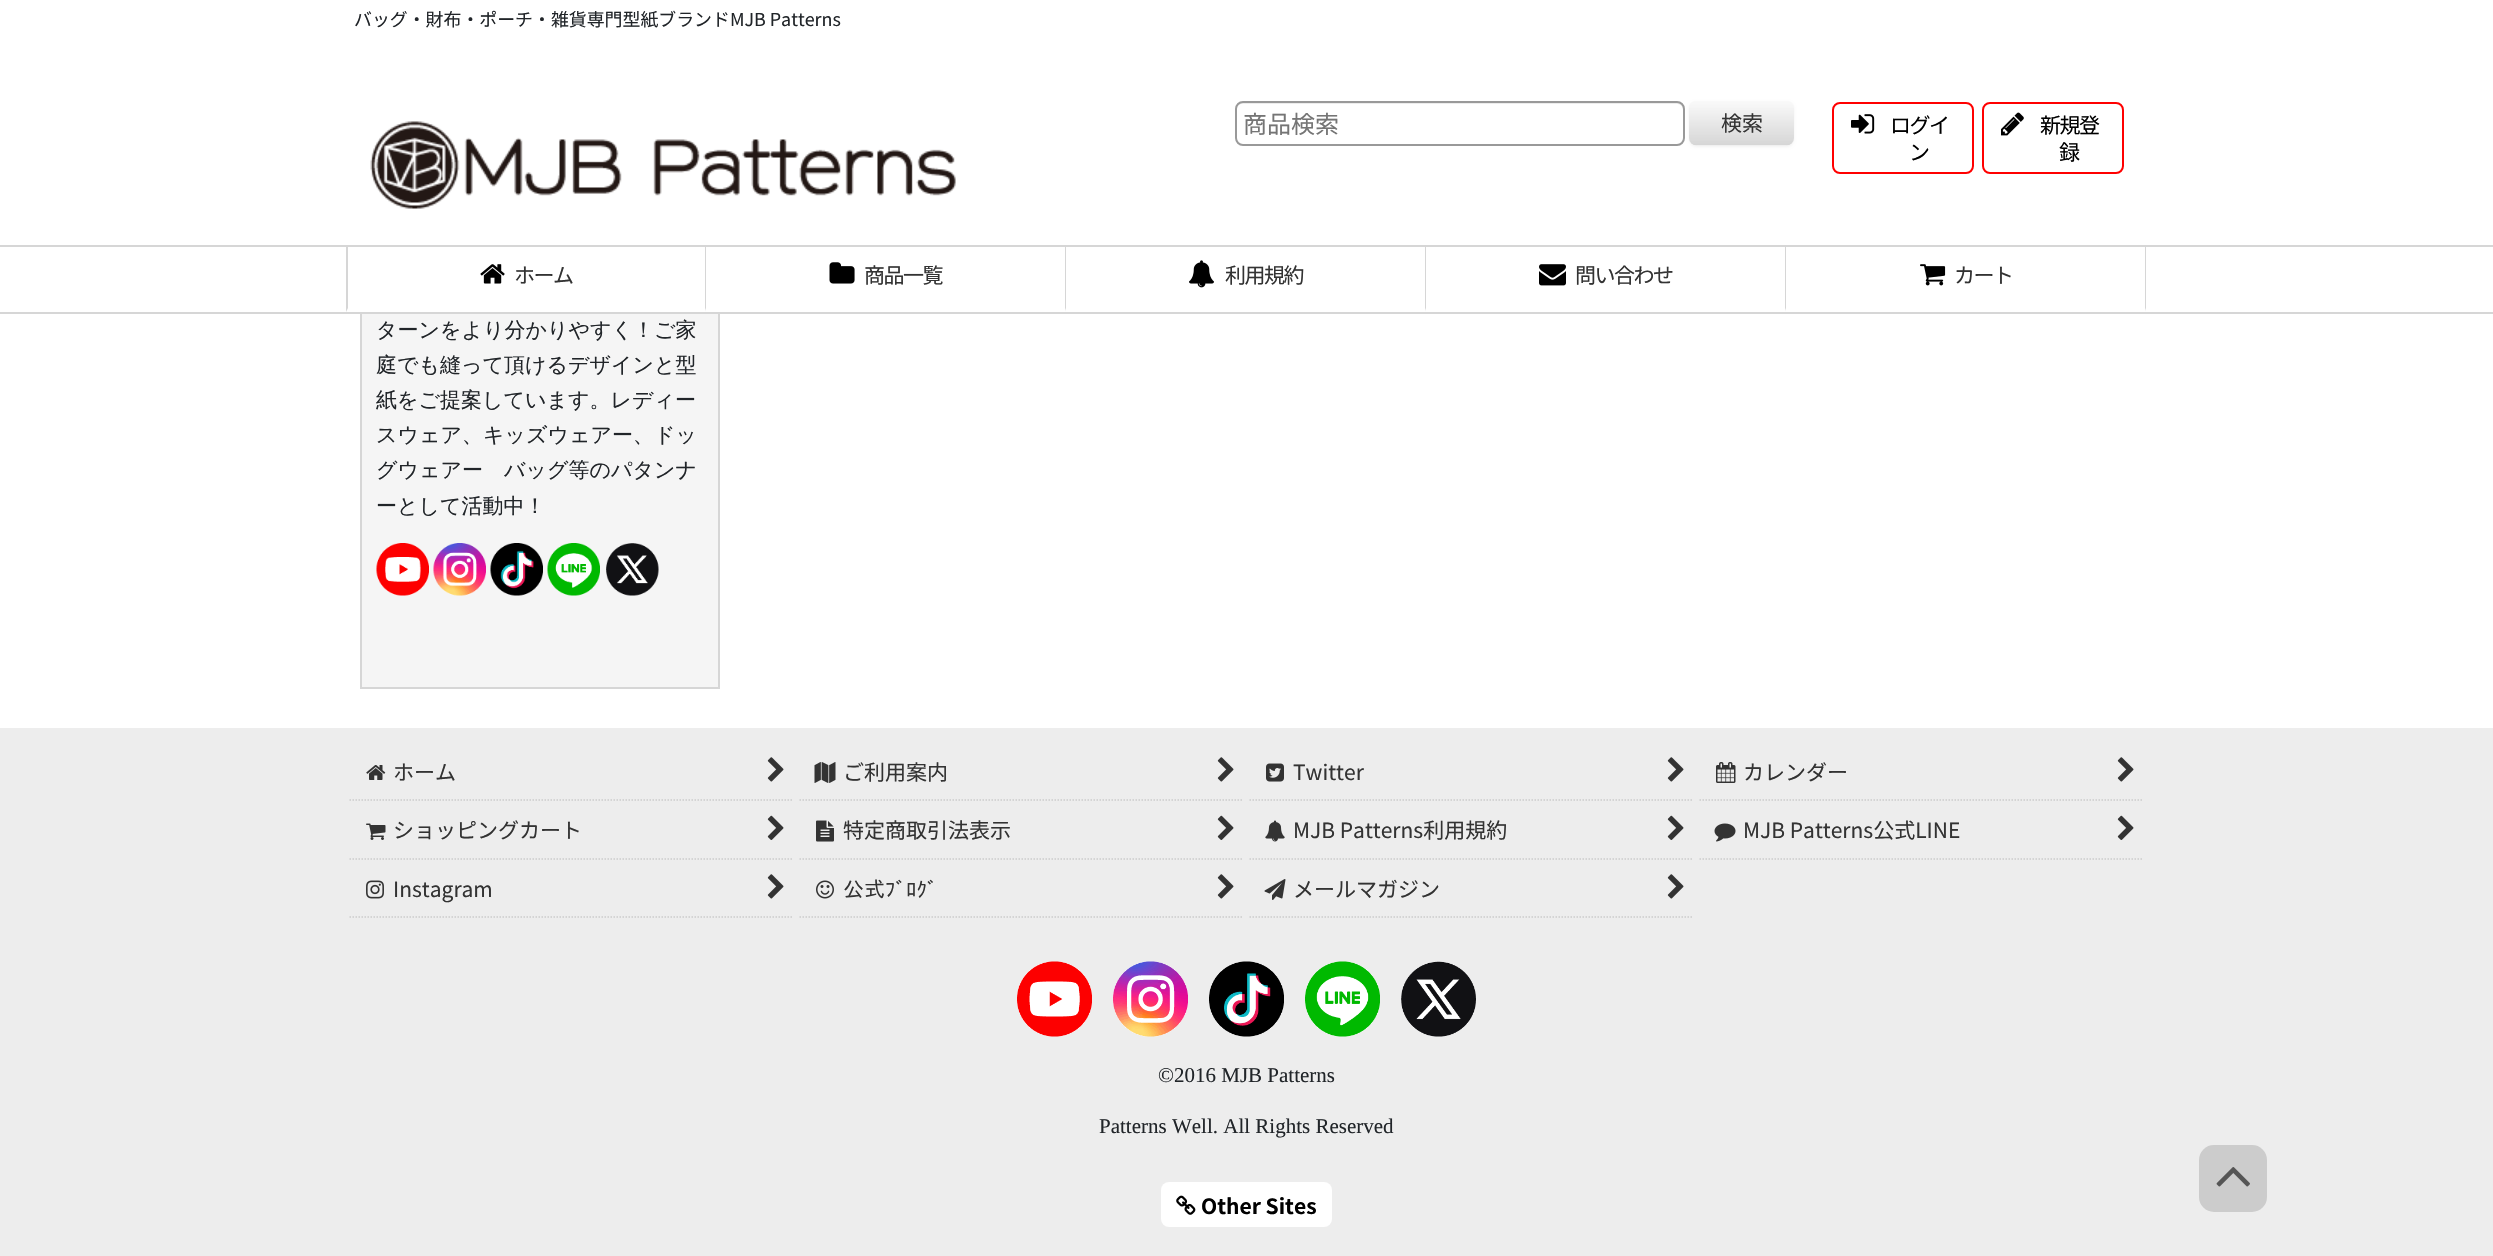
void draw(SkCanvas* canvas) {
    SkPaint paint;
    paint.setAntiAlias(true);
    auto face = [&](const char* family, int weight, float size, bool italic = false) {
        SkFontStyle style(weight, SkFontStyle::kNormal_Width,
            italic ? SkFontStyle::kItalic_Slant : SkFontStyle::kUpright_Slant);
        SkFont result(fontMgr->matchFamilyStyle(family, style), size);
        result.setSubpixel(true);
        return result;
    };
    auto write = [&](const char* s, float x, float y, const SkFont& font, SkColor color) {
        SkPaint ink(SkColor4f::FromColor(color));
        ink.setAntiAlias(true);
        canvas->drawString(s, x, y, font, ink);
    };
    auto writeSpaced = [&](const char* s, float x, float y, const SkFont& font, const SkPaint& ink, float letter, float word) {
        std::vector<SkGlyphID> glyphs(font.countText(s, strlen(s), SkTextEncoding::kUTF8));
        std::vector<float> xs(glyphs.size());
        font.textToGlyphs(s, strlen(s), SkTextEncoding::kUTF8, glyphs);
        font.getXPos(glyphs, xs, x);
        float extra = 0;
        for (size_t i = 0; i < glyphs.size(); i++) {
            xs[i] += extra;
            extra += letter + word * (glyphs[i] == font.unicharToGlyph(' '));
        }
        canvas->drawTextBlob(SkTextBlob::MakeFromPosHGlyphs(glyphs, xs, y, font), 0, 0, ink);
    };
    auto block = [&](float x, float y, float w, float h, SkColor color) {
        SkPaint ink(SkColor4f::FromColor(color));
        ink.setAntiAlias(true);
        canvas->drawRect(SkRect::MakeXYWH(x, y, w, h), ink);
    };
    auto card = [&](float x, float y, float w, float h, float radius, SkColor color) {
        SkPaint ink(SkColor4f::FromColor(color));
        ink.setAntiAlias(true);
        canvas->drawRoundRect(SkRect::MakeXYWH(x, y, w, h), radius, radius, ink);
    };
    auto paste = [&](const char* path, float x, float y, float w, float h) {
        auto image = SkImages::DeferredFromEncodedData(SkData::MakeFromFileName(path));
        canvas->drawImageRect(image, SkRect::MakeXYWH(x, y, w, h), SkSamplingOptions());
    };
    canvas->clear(SK_ColorWHITE);
    block(362, 314, 356, 373, SkColorSetRGB(245, 245, 245));
    paint.setStyle(SkPaint::kStroke_Style);
    paint.setStrokeWidth(2);
    paint.setColor(SkColorSetRGB(214, 214, 214));
    canvas->drawRect(SkRect::MakeXYWH(361, 64, 358, 624), paint);
    block(360, 63, 360, 182, SK_ColorWHITE);
    block(360, 247, 360, 65, SK_ColorWHITE);
    paint.setStyle(SkPaint::kFill_Style);
    canvas->drawPath(SkPathBuilder().moveTo(706, 246).lineTo(706, 312).lineTo(705, 308).lineTo(705, 246).close().detach(), paint);
    paint.setColor(SK_ColorWHITE);
    canvas->drawPath(SkPathBuilder().moveTo(706, 312).lineTo(346, 312).lineTo(348, 308).lineTo(705, 308).close().detach(), paint);
    paint.setColor(SkColorSetRGB(214, 214, 214));
    canvas->drawPath(SkPathBuilder().moveTo(346, 312).lineTo(346, 246).lineTo(348, 246).lineTo(348, 308).close().detach(), paint);
    canvas->drawPath(SkPathBuilder().moveTo(1066, 246).lineTo(1066, 312).lineTo(1065, 308).lineTo(1065, 246).close().detach(), paint);
    canvas->drawPath(SkPathBuilder().moveTo(1426, 246).lineTo(1426, 312).lineTo(1425, 308).lineTo(1425, 246).close().detach(), paint);
    canvas->drawPath(SkPathBuilder().moveTo(1786, 246).lineTo(1786, 312).lineTo(1785, 308).lineTo(1785, 246).close().detach(), paint);
    canvas->drawPath(SkPathBuilder().moveTo(2146, 246).lineTo(2146, 312).lineTo(2145, 308).lineTo(2145, 246).close().detach(), paint);
    block(0, 245, 2493, 2, SkColorSetRGB(214, 214, 214));
    auto kFont1 = face("Noto Sans JP", 400, 17.9f);
    write("バッグ・財布・ポーチ・雑貨専門型紙ブランドMJB Patterns", 354, 26, kFont1, SkColorSetRGB(33, 37, 41));
    paint.setColor(SkColorSetRGB(236, 236, 236));
    canvas->drawPath(SkPathBuilder().moveTo(1242, 104).lineTo(1677, 104).cubicTo(1680, 104, 1683, 106, 1683, 110).lineTo(1683, 108).cubicTo(1683, 105, 1680, 102, 1677, 102).lineTo(1242, 102).cubicTo(1239, 102, 1236, 105, 1236, 108).lineTo(1236, 110).cubicTo(1236, 106, 1239, 104, 1242, 104).close().detach(), paint);
    paint.setStyle(SkPaint::kStroke_Style);
    paint.setColor(SkColorSetRGB(153, 153, 153));
    canvas->drawRoundRect(SkRect::MakeXYWH(1236, 102, 448, 43), 7, 7, paint);
    auto kFont2 = face("Noto Sans JP", 400, 24);
    write("商品検索", 1243, 133, kFont2, SkColorSetRGB(117, 117, 117));
    paint.setStyle(SkPaint::kFill_Style);
    paint.setColor(SkColorSetARGB(13, 0, 0, 0));
    paint.setMaskFilter(SkMaskFilter::MakeBlur(kNormal_SkBlurStyle, 1.5f));
    canvas->drawRoundRect(SkRect::MakeXYWH(1689, 102, 105, 45), 8, 8, paint);
    paint.setMaskFilter(nullptr);
    card(1689, 101, 105, 45, 8, SkColorSetRGB(249, 249, 249));
    paste("pic1.png", 1689, 101, 105, 45);
    auto kFont3 = face("Noto Sans JP", 400, 21);
    write("検索", 1721, 131, kFont3, SkColorSetRGB(51, 51, 51));
    paste("pic2.png", 370, 121, 586, 88);
    paint.setStyle(SkPaint::kStroke_Style);
    paint.setColor(SkColorSetRGB(255, 0, 0));
    canvas->drawRoundRect(SkRect::MakeXYWH(1833, 103, 140, 70), 7, 7, paint);
    paste("pic3.png", 1851, 114, 24, 20);
    paint.setStyle(SkPaint::kFill_Style);
    paint.setColor(SK_ColorBLACK);
    writeSpaced("ログイ", 1890, 133, kFont3, paint, -1.5f, 0);
    writeSpaced("ン", 1909, 160, kFont3, paint, -1.5f, 0);
    paint.setStyle(SkPaint::kStroke_Style);
    paint.setColor(SkColorSetRGB(255, 0, 0));
    canvas->drawRoundRect(SkRect::MakeXYWH(1983, 103, 140, 70), 7, 7, paint);
    paste("pic4.png", 2001, 112, 23, 24);
    paint.setStyle(SkPaint::kFill_Style);
    paint.setColor(SK_ColorBLACK);
    writeSpaced("新規登", 2040, 133, kFont3, paint, -1.5f, 0);
    writeSpaced("録", 2059, 160, kFont3, paint, -1.5f, 0);
    block(0, 312, 2493, 2, SkColorSetRGB(214, 214, 214));
    paste("pic5.png", 480, 264, 25, 20);
    paint.setColor(SkColorSetRGB(51, 51, 51));
    writeSpaced("ホーム", 514, 283, kFont3, paint, -1.5f, 0);
    paint.setColor(SK_ColorWHITE);
    canvas->drawPath(SkPathBuilder().moveTo(1066, 312).lineTo(706, 312).lineTo(706, 308).lineTo(1065, 308).close().detach(), paint);
    paste("pic6.png", 829, 262, 26, 22);
    paint.setColor(SkColorSetRGB(51, 51, 51));
    writeSpaced("商品一覧", 864, 283, kFont3, paint, -1.5f, 0);
    paint.setColor(SK_ColorWHITE);
    canvas->drawPath(SkPathBuilder().moveTo(1426, 312).lineTo(1066, 312).lineTo(1066, 308).lineTo(1425, 308).close().detach(), paint);
    paste("pic7.png", 1189, 260, 25, 28);
    paint.setColor(SkColorSetRGB(51, 51, 51));
    writeSpaced("利用規約", 1225, 283, kFont3, paint, -1.5f, 0);
    paint.setColor(SK_ColorWHITE);
    canvas->drawPath(SkPathBuilder().moveTo(1786, 312).lineTo(1426, 312).lineTo(1426, 308).lineTo(1785, 308).close().detach(), paint);
    paste("pic8.png", 1539, 264, 27, 22);
    paint.setColor(SkColorSetRGB(51, 51, 51));
    writeSpaced("問い合わせ", 1575, 283, kFont3, paint, -1.5f, 0);
    paint.setColor(SK_ColorWHITE);
    canvas->drawPath(SkPathBuilder().moveTo(2146, 312).lineTo(1786, 312).lineTo(1786, 308).lineTo(2145, 308).close().detach(), paint);
    paste("pic9.png", 1920, 264, 26, 22);
    paint.setColor(SkColorSetRGB(51, 51, 51));
    writeSpaced("カート", 1954, 283, kFont3, paint, -1.5f, 0);
    auto kFont4 = face("WenQuanYi Zen Hei", 500, 21);
    write("ターンをより分かりやすく！ご家", 376, 337, kFont4, SkColorSetRGB(33, 37, 41));
    write("庭でも縫って頂けるデザインと型", 376, 372, kFont4, SkColorSetRGB(33, 37, 41));
    write("紙をご提案しています。レディー", 376, 407, kFont4, SkColorSetRGB(33, 37, 41));
    write("スウェア、キッズウェアー、ドッ", 376, 442, kFont4, SkColorSetRGB(33, 37, 41));
    write("グウェアー　バッグ等のパタンナ", 376, 477, kFont4, SkColorSetRGB(33, 37, 41));
    write("ーとして活動中！", 376, 513, kFont4, SkColorSetRGB(33, 37, 41));
    paste("pic10.png", 376, 543, 53, 53);
    paste("pic11.png", 433, 543, 53, 53);
    paste("pic12.png", 490, 543, 53, 53);
    paste("pic13.png", 547, 543, 53, 53);
    paste("pic14.png", 606, 543, 53, 53);
    block(0, 728, 2493, 528, SkColorSetRGB(237, 237, 237));
    paint.setStyle(SkPaint::kStroke_Style);
    paint.setStrokeWidth(1.5f);
    paint.setColor(SkColorSetRGB(204, 204, 204));
    paint.setPathEffect(SkDashPathEffect::Make({{1.5f, 1.5f}}, 0));
    canvas->drawPath(SkPathBuilder().moveTo(349.5f, 800).lineTo(793.5f, 800).detach(), paint);
    paint.setPathEffect(nullptr);
    paste("pic15.png", 366, 765, 20, 15);
    write("ホーム", 393, 780, kFont3, SkColorSetRGB(51, 51, 51));
    paste("pic16.png", 767, 757, 17, 25);
    paint.setPathEffect(SkDashPathEffect::Make({{1.5f, 1.5f}}, 0));
    canvas->drawPath(SkPathBuilder().moveTo(799.5f, 800).lineTo(1243.5f, 800).detach(), paint);
    paint.setPathEffect(nullptr);
    paste("pic17.png", 814, 762, 22, 21);
    write("ご利用案内", 843, 780, kFont3, SkColorSetRGB(51, 51, 51));
    paste("pic16.png", 1217, 757, 17, 25);
    paint.setPathEffect(SkDashPathEffect::Make({{1.5f, 1.5f}}, 0));
    canvas->drawPath(SkPathBuilder().moveTo(1249.5f, 800).lineTo(1693.5f, 800).detach(), paint);
    paint.setPathEffect(nullptr);
    paste("pic18.png", 1266, 763, 18, 19);
    write("Twitter", 1293, 780, kFont3, SkColorSetRGB(51, 51, 51));
    paste("pic16.png", 1667, 757, 17, 25);
    paint.setPathEffect(SkDashPathEffect::Make({{1.5f, 1.5f}}, 0));
    canvas->drawPath(SkPathBuilder().moveTo(1699.5f, 800).lineTo(2143.5f, 800).detach(), paint);
    paint.setPathEffect(nullptr);
    paste("pic19.png", 1716, 762, 20, 21);
    write("カレンダー", 1743, 780, kFont3, SkColorSetRGB(51, 51, 51));
    paste("pic16.png", 2117, 757, 17, 25);
    paint.setPathEffect(SkDashPathEffect::Make({{1.5f, 1.5f}}, 0));
    canvas->drawPath(SkPathBuilder().moveTo(349.5f, 859).lineTo(793.5f, 859).detach(), paint);
    paint.setPathEffect(nullptr);
    paste("pic20.png", 366, 823, 20, 17);
    write("ショッピングカート", 393, 838, kFont3, SkColorSetRGB(51, 51, 51));
    paste("pic21.png", 767, 815, 17, 25);
    paint.setPathEffect(SkDashPathEffect::Make({{1.5f, 1.5f}}, 0));
    canvas->drawPath(SkPathBuilder().moveTo(799.5f, 859).lineTo(1243.5f, 859).detach(), paint);
    paint.setPathEffect(nullptr);
    paste("pic22.png", 816, 820, 18, 22);
    write("特定商取引法表示", 843, 838, kFont3, SkColorSetRGB(51, 51, 51));
    paste("pic21.png", 1217, 815, 17, 25);
    paint.setPathEffect(SkDashPathEffect::Make({{1.5f, 1.5f}}, 0));
    canvas->drawPath(SkPathBuilder().moveTo(1249.5f, 859).lineTo(1693.5f, 859).detach(), paint);
    paint.setPathEffect(nullptr);
    paste("pic23.png", 1265, 820, 20, 22);
    write("MJB Patterns利用規約", 1293, 838, kFont3, SkColorSetRGB(51, 51, 51));
    paste("pic21.png", 1667, 815, 17, 25);
    paint.setPathEffect(SkDashPathEffect::Make({{1.5f, 1.5f}}, 0));
    canvas->drawPath(SkPathBuilder().moveTo(1699.5f, 859).lineTo(2143.5f, 859).detach(), paint);
    paint.setPathEffect(nullptr);
    paste("pic24.png", 1714, 823, 22, 19);
    write("MJB Patterns公式LINE", 1743, 838, kFont3, SkColorSetRGB(51, 51, 51));
    paste("pic21.png", 2117, 815, 17, 25);
    paint.setPathEffect(SkDashPathEffect::Make({{1.5f, 1.5f}}, 0));
    canvas->drawPath(SkPathBuilder().moveTo(349.5f, 917).lineTo(793.5f, 917).detach(), paint);
    paint.setPathEffect(nullptr);
    paste("pic25.png", 366, 880, 18, 19);
    write("Instagram", 393, 897, kFont3, SkColorSetRGB(51, 51, 51));
    paste("pic16.png", 767, 874, 17, 25);
    paint.setPathEffect(SkDashPathEffect::Make({{1.5f, 1.5f}}, 0));
    canvas->drawPath(SkPathBuilder().moveTo(799.5f, 917).lineTo(1243.5f, 917).detach(), paint);
    paint.setPathEffect(nullptr);
    paste("pic26.png", 816, 880, 18, 19);
    auto kFont5 = face("IPAPGothic", 400, 21);
    write("公式ﾌﾞﾛｸﾞ", 843, 897, kFont5, SkColorSetRGB(51, 51, 51));
    paste("pic16.png", 1217, 874, 17, 25);
    paint.setPathEffect(SkDashPathEffect::Make({{1.5f, 1.5f}}, 0));
    canvas->drawPath(SkPathBuilder().moveTo(1249.5f, 917).lineTo(1693.5f, 917).detach(), paint);
    paint.setPathEffect(nullptr);
    paste("pic27.png", 1264, 879, 22, 21);
    write("メールマガジン", 1293, 897, kFont3, SkColorSetRGB(51, 51, 51));
    paste("pic16.png", 1667, 874, 17, 25);
    paste("pic28.png", 1017, 961, 75, 76);
    paste("pic29.png", 1113, 961, 75, 76);
    paste("pic30.png", 1209, 961, 75, 76);
    paste("pic31.png", 1305, 961, 75, 76);
    paste("pic32.png", 1401, 961, 75, 76);
    auto kFont6 = face("Liberation Serif", 400, 21);
    write("©2016 MJB Patterns", 1158, 1082, kFont6, SkColorSetRGB(33, 37, 41));
    write("Patterns Well. All Rights Reserved", 1099, 1133, kFont6, SkColorSetRGB(33, 37, 41));
    card(1161, 1182, 171, 45, 8, SK_ColorWHITE);
    paste("pic33.png", 1176, 1195, 20, 20);
    auto kFont7 = face("Noto Sans JP", 700, 21);
    write("Other Sites", 1201, 1214, kFont7, SK_ColorBLACK);
    card(2199, 1145, 68, 67, 15, SkColorSetRGB(204, 204, 204));
    paste("pic34.png", 2216, 1167, 34, 20);
}
